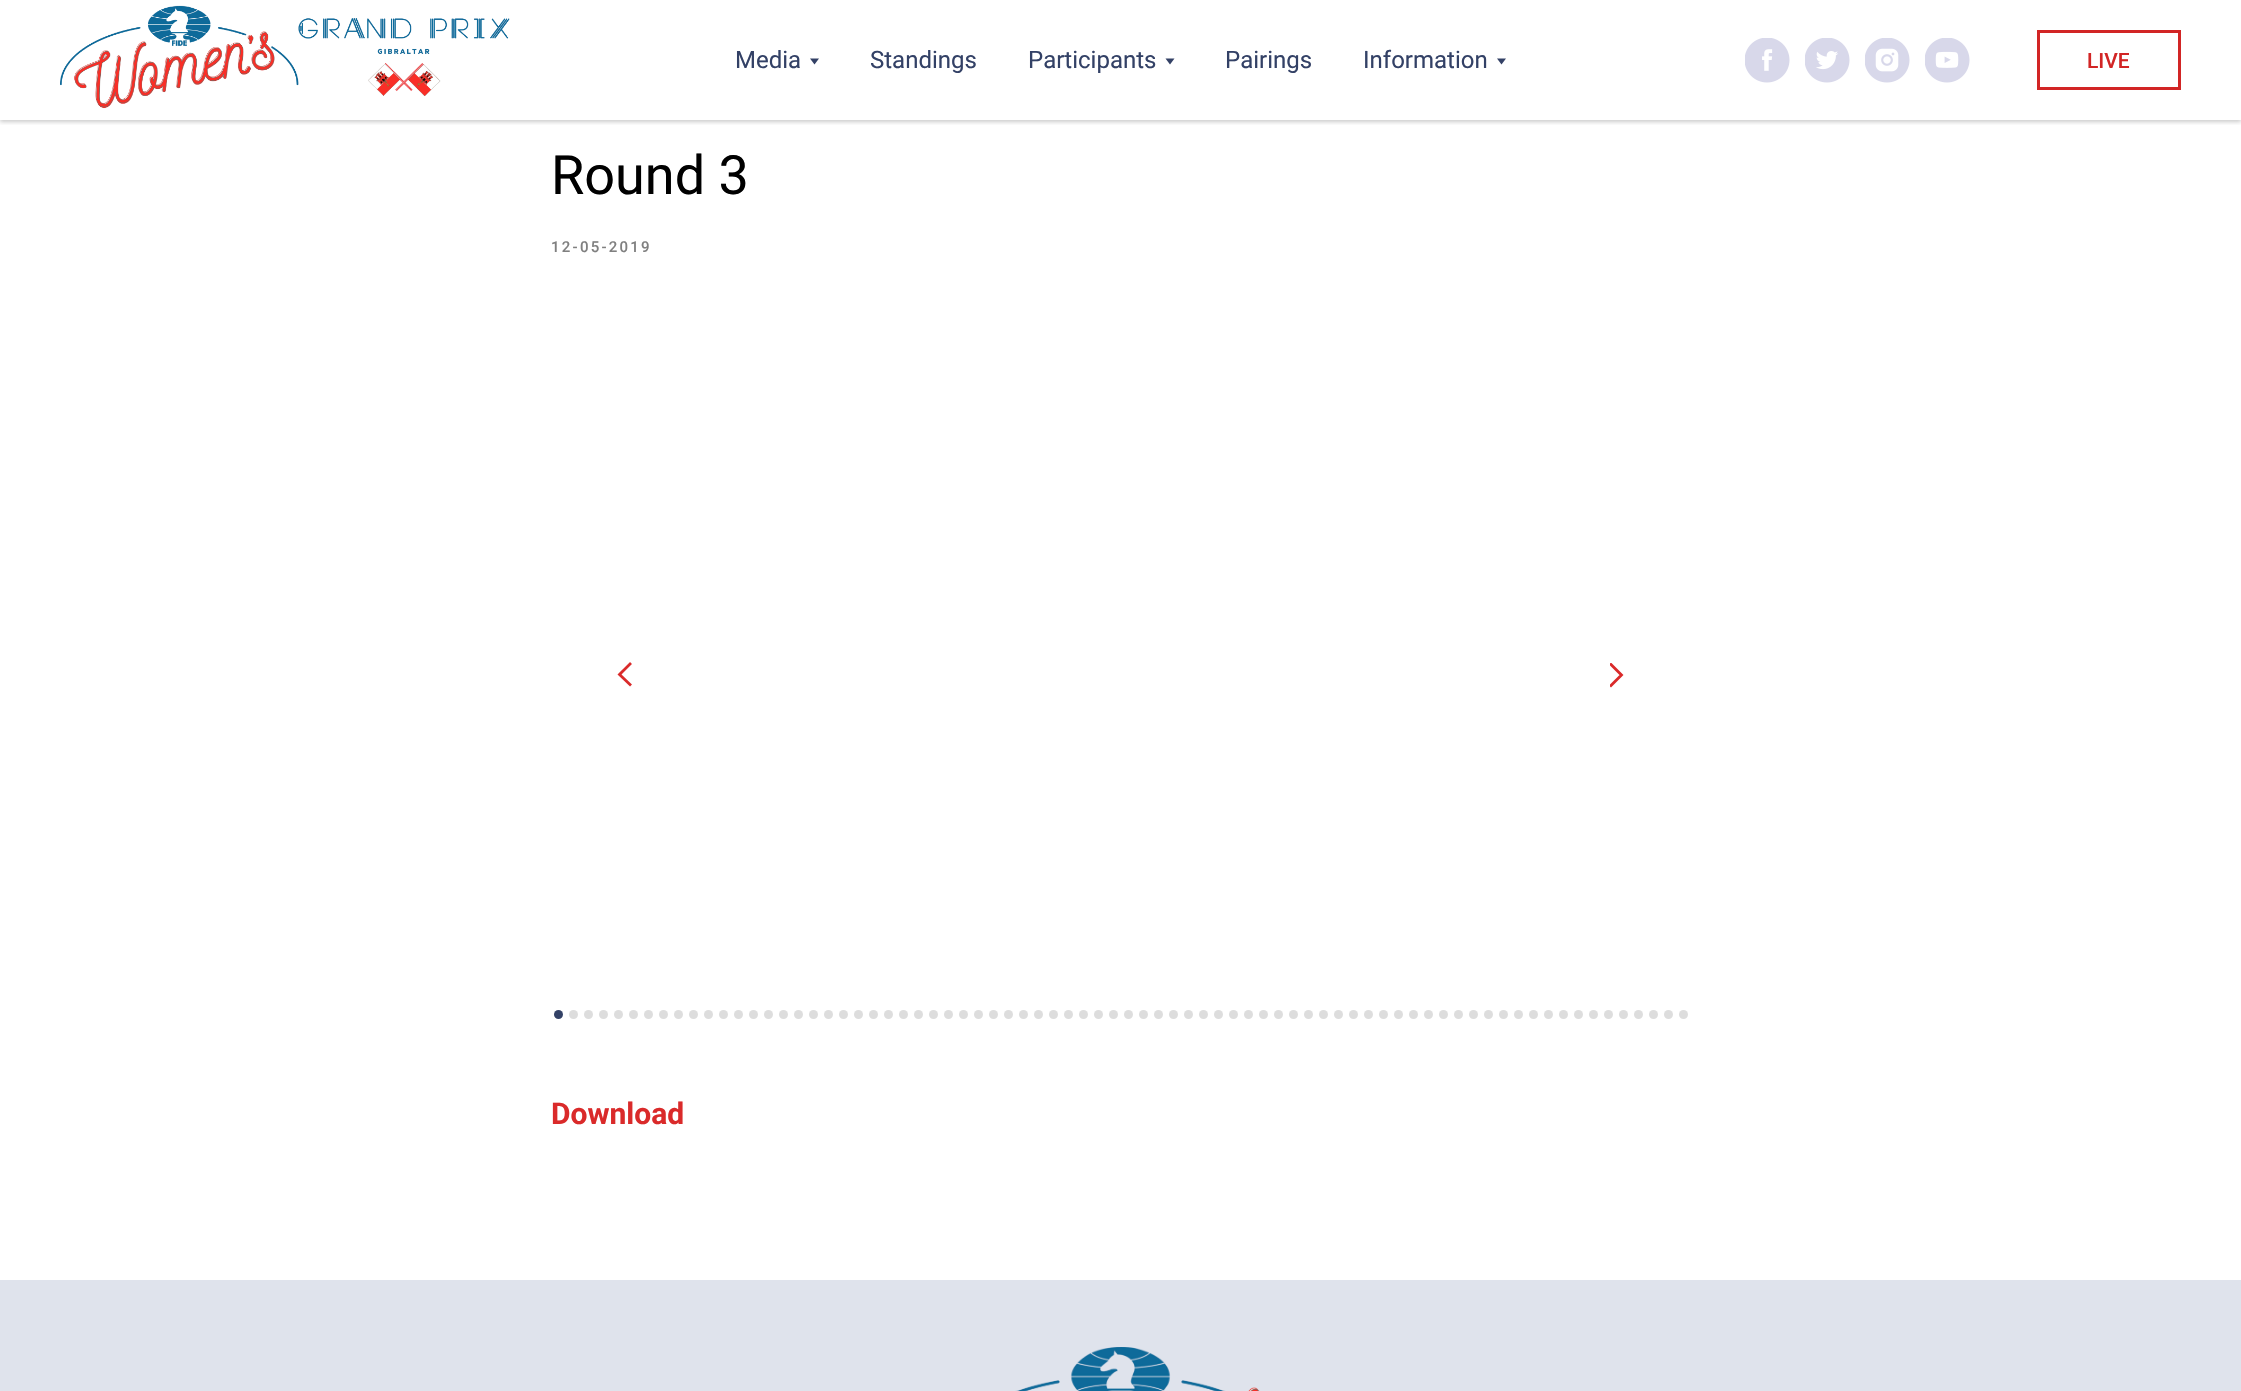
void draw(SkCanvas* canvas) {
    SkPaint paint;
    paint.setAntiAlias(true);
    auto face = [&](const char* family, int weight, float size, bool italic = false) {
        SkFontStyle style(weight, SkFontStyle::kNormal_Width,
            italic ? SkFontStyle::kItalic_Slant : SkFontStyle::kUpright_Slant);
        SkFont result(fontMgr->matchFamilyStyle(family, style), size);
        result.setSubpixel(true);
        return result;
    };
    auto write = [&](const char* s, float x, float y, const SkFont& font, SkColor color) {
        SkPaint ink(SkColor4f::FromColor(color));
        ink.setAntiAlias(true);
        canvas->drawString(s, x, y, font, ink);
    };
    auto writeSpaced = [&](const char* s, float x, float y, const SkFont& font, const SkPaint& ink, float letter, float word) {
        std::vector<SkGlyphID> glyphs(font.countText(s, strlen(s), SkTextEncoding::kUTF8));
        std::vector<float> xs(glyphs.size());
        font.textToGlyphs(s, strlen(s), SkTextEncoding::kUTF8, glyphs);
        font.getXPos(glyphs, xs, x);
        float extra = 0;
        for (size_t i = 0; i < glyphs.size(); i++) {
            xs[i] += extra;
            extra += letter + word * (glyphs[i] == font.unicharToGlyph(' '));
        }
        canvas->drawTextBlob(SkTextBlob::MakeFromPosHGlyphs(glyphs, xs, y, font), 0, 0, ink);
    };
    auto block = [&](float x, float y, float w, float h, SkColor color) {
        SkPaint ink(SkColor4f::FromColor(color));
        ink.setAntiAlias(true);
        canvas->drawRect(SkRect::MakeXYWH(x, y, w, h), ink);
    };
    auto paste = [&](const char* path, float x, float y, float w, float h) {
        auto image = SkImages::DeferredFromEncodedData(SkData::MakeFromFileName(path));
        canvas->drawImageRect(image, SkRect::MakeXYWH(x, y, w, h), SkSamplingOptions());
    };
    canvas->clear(SK_ColorWHITE);
    canvas->save();
    canvas->clipRect(SkRect::MakeXYWH(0, 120, 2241, 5));
    paint.setColor(SkColorSetARGB(51, 0, 0, 0));
    paint.setMaskFilter(SkMaskFilter::MakeBlur(kNormal_SkBlurStyle, 2));
    canvas->drawRect(SkRect::MakeXYWH(0, 2, 2241, 120), paint);
    paint.setMaskFilter(nullptr);
    canvas->restore();
    paste("pic1.png", 60, 5, 450, 104);
    auto kFont1 = face("Roboto", 400, 24);
    write("Media", 735, 68, kFont1, SkColorSetRGB(51, 65, 102));
    paint.setColor(SkColorSetRGB(51, 65, 102));
    canvas->drawPath(SkPathBuilder().moveTo(810, 58.5f).lineTo(819, 58.5f).lineTo(814.5f, 64.5f).close().detach(), paint);
    write("Standings", 870, 68, kFont1, SkColorSetRGB(51, 65, 102));
    write("Participants", 1028, 68, kFont1, SkColorSetRGB(51, 65, 102));
    canvas->drawPath(SkPathBuilder().moveTo(1165.5f, 58.5f).lineTo(1174.5f, 58.5f).lineTo(1170, 64.5f).close().detach(), paint);
    write("Pairings", 1225, 68, kFont1, SkColorSetRGB(51, 65, 102));
    write("Information", 1363, 68, kFont1, SkColorSetRGB(51, 65, 102));
    canvas->drawPath(SkPathBuilder().moveTo(1497, 58.5f).lineTo(1506, 58.5f).lineTo(1501.5f, 64.5f).close().detach(), paint);
    paste("pic2.png", 1745, 38, 45, 45);
    paste("pic3.png", 1805, 38, 45, 45);
    paste("pic4.png", 1865, 38, 45, 45);
    paste("pic5.png", 1925, 38, 45, 45);
    paint.setStyle(SkPaint::kStroke_Style);
    paint.setStrokeWidth(3);
    paint.setColor(SkColorSetRGB(210, 37, 37));
    canvas->drawRect(SkRect::MakeXYWH(2038.5f, 31.5f, 141, 57), paint);
    auto kFont2 = face("Roboto", 500, 21);
    write("LIVE", 2087, 68, kFont2, SkColorSetRGB(210, 37, 37));
    auto kFont3 = face("Roboto", 400, 54);
    write("Round 3", 551, 194, kFont3, SK_ColorBLACK);
    auto kFont4 = face("Roboto", 500, 15);
    paint.setStyle(SkPaint::kFill_Style);
    paint.setColor(SkColorSetRGB(128, 128, 128));
    writeSpaced("12-05-2019", 551, 252, kFont4, paint, 2.25f, 0);
    paint.setStyle(SkPaint::kStroke_Style);
    paint.setStrokeWidth(2.8f);
    paint.setColor(SkColorSetRGB(218, 42, 42));
    canvas->drawPath(SkPathBuilder().moveTo(631, 685.5f).lineTo(619.5f, 674.5f).lineTo(631, 663).detach(), paint);
    canvas->save();
    canvas->clipRect(SkRect::MakeXYWH(1610, 663, 15, 26));
    canvas->drawPath(SkPathBuilder().moveTo(1610, 663.5f).lineTo(1621.5f, 675).lineTo(1610, 686.5f).detach(), paint);
    canvas->restore();
    paint.setStyle(SkPaint::kFill_Style);
    paint.setColor(SkColorSetRGB(51, 65, 102));
    canvas->drawCircle(558.5f, 1014.5f, 4.5f, paint);
    paint.setColor(SkColorSetRGB(221, 221, 221));
    canvas->drawCircle(573.5f, 1014.5f, 4.5f, paint);
    canvas->drawCircle(588.5f, 1014.5f, 4.5f, paint);
    canvas->drawCircle(603.5f, 1014.5f, 4.5f, paint);
    canvas->drawCircle(618.5f, 1014.5f, 4.5f, paint);
    canvas->drawCircle(633.5f, 1014.5f, 4.5f, paint);
    canvas->drawCircle(648.5f, 1014.5f, 4.5f, paint);
    canvas->drawCircle(663.5f, 1014.5f, 4.5f, paint);
    canvas->drawCircle(678.5f, 1014.5f, 4.5f, paint);
    canvas->drawCircle(693.5f, 1014.5f, 4.5f, paint);
    canvas->drawCircle(708.5f, 1014.5f, 4.5f, paint);
    canvas->drawCircle(723.5f, 1014.5f, 4.5f, paint);
    canvas->drawCircle(738.5f, 1014.5f, 4.5f, paint);
    canvas->drawCircle(753.5f, 1014.5f, 4.5f, paint);
    canvas->drawCircle(768.5f, 1014.5f, 4.5f, paint);
    canvas->drawCircle(783.5f, 1014.5f, 4.5f, paint);
    canvas->drawCircle(798.5f, 1014.5f, 4.5f, paint);
    canvas->drawCircle(813.5f, 1014.5f, 4.5f, paint);
    canvas->drawCircle(828.5f, 1014.5f, 4.5f, paint);
    canvas->drawCircle(843.5f, 1014.5f, 4.5f, paint);
    canvas->drawCircle(858.5f, 1014.5f, 4.5f, paint);
    canvas->drawCircle(873.5f, 1014.5f, 4.5f, paint);
    canvas->drawCircle(888.5f, 1014.5f, 4.5f, paint);
    canvas->drawCircle(903.5f, 1014.5f, 4.5f, paint);
    canvas->drawCircle(918.5f, 1014.5f, 4.5f, paint);
    canvas->drawCircle(933.5f, 1014.5f, 4.5f, paint);
    canvas->drawCircle(948.5f, 1014.5f, 4.5f, paint);
    canvas->drawCircle(963.5f, 1014.5f, 4.5f, paint);
    canvas->drawCircle(978.5f, 1014.5f, 4.5f, paint);
    canvas->drawCircle(993.5f, 1014.5f, 4.5f, paint);
    canvas->drawCircle(1008.5f, 1014.5f, 4.5f, paint);
    canvas->drawCircle(1023.5f, 1014.5f, 4.5f, paint);
    canvas->drawCircle(1038.5f, 1014.5f, 4.5f, paint);
    canvas->drawCircle(1053.5f, 1014.5f, 4.5f, paint);
    canvas->drawCircle(1068.5f, 1014.5f, 4.5f, paint);
    canvas->drawCircle(1083.5f, 1014.5f, 4.5f, paint);
    canvas->drawCircle(1098.5f, 1014.5f, 4.5f, paint);
    canvas->drawCircle(1113.5f, 1014.5f, 4.5f, paint);
    canvas->drawCircle(1128.5f, 1014.5f, 4.5f, paint);
    canvas->drawCircle(1143.5f, 1014.5f, 4.5f, paint);
    canvas->drawCircle(1158.5f, 1014.5f, 4.5f, paint);
    canvas->drawCircle(1173.5f, 1014.5f, 4.5f, paint);
    canvas->drawCircle(1188.5f, 1014.5f, 4.5f, paint);
    canvas->drawCircle(1203.5f, 1014.5f, 4.5f, paint);
    canvas->drawCircle(1218.5f, 1014.5f, 4.5f, paint);
    canvas->drawCircle(1233.5f, 1014.5f, 4.5f, paint);
    canvas->drawCircle(1248.5f, 1014.5f, 4.5f, paint);
    canvas->drawCircle(1263.5f, 1014.5f, 4.5f, paint);
    canvas->drawCircle(1278.5f, 1014.5f, 4.5f, paint);
    canvas->drawCircle(1293.5f, 1014.5f, 4.5f, paint);
    canvas->drawCircle(1308.5f, 1014.5f, 4.5f, paint);
    canvas->drawCircle(1323.5f, 1014.5f, 4.5f, paint);
    canvas->drawCircle(1338.5f, 1014.5f, 4.5f, paint);
    canvas->drawCircle(1353.5f, 1014.5f, 4.5f, paint);
    canvas->drawCircle(1368.5f, 1014.5f, 4.5f, paint);
    canvas->drawCircle(1383.5f, 1014.5f, 4.5f, paint);
    canvas->drawCircle(1398.5f, 1014.5f, 4.5f, paint);
    canvas->drawCircle(1413.5f, 1014.5f, 4.5f, paint);
    canvas->drawCircle(1428.5f, 1014.5f, 4.5f, paint);
    canvas->drawCircle(1443.5f, 1014.5f, 4.5f, paint);
    canvas->drawCircle(1458.5f, 1014.5f, 4.5f, paint);
    canvas->drawCircle(1473.5f, 1014.5f, 4.5f, paint);
    canvas->drawCircle(1488.5f, 1014.5f, 4.5f, paint);
    canvas->drawCircle(1503.5f, 1014.5f, 4.5f, paint);
    canvas->drawCircle(1518.5f, 1014.5f, 4.5f, paint);
    canvas->drawCircle(1533.5f, 1014.5f, 4.5f, paint);
    canvas->drawCircle(1548.5f, 1014.5f, 4.5f, paint);
    canvas->drawCircle(1563.5f, 1014.5f, 4.5f, paint);
    canvas->drawCircle(1578.5f, 1014.5f, 4.5f, paint);
    canvas->drawCircle(1593.5f, 1014.5f, 4.5f, paint);
    canvas->drawCircle(1608.5f, 1014.5f, 4.5f, paint);
    canvas->drawCircle(1623.5f, 1014.5f, 4.5f, paint);
    canvas->drawCircle(1638.5f, 1014.5f, 4.5f, paint);
    canvas->drawCircle(1653.5f, 1014.5f, 4.5f, paint);
    canvas->drawCircle(1668.5f, 1014.5f, 4.5f, paint);
    canvas->drawCircle(1683.5f, 1014.5f, 4.5f, paint);
    auto kFont5 = face("Roboto", 700, 30);
    write("Download", 551, 1124, kFont5, SkColorSetRGB(218, 42, 42));
    block(0, 1280, 2241, 111, SkColorSetRGB(223, 227, 236));
    paste("pic6.png", 1015, 1347, 245, 44);
}
